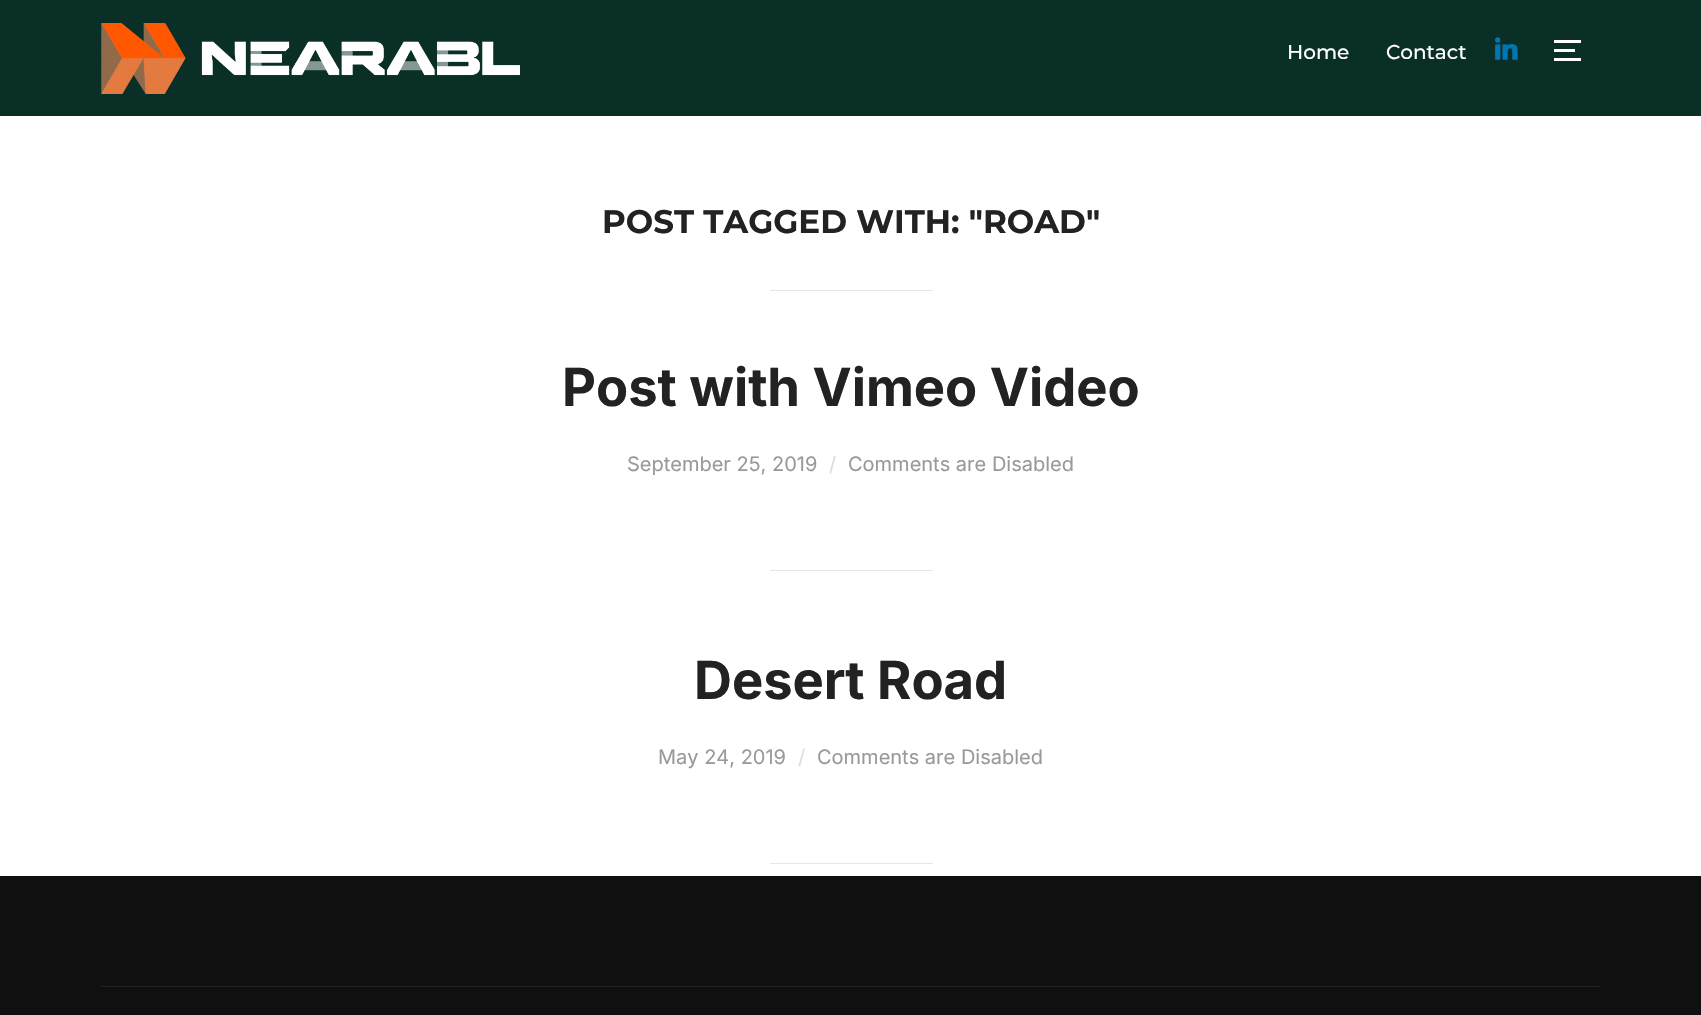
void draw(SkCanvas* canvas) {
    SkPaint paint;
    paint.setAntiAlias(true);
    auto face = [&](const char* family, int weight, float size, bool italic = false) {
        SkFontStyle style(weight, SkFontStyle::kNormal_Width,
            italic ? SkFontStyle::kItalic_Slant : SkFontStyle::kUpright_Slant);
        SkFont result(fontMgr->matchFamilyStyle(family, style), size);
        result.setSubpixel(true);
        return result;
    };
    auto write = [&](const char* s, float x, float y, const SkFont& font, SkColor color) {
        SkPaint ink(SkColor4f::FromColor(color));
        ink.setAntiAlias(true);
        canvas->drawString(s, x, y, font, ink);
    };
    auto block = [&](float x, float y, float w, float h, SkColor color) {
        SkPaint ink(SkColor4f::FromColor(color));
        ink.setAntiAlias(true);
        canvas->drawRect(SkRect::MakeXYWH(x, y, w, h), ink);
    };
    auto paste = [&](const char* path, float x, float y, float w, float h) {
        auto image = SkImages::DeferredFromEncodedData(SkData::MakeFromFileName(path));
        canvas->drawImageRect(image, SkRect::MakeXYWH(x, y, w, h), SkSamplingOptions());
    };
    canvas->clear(SK_ColorWHITE);
    block(0, 0, 1701, 116, SkColorSetRGB(10, 47, 39));
    paste("pic1.png", 101, 23, 419, 71);
    auto kFont1 = face("Montserrat", 500, 20);
    write("Home", 1287, 59, kFont1, SK_ColorWHITE);
    write("Contact", 1386, 59, kFont1, SK_ColorWHITE);
    paste("pic2.png", 1495, 37, 23, 23);
    block(1554, 40, 27, 3, SK_ColorWHITE);
    block(1554, 49, 21, 3, SK_ColorWHITE);
    block(1554, 58, 27, 3, SK_ColorWHITE);
    auto kFont2 = face("Montserrat", 700, 32.5f);
    write("POST TAGGED WITH: \"ROAD\"", 602, 233, kFont2, SkColorSetRGB(34, 34, 34));
    block(770, 290, 163, 1, SkColorSetRGB(230, 230, 230));
    auto kFont3 = face("Inter", 700, 52.5f);
    write("Post with Vimeo Video", 562, 406, kFont3, SkColorSetRGB(34, 34, 34));
    auto kFont4 = face("Inter", 400, 20);
    write("September 25, 2019", 627, 471, kFont4, SkColorSetRGB(153, 153, 153));
    write("/", 829, 471, kFont4, SkColorSetRGB(219, 221, 221));
    write("Comments are Disabled", 848, 471, kFont4, SkColorSetRGB(153, 153, 153));
    block(770, 570, 163, 1, SkColorSetRGB(230, 230, 230));
    write("Desert Road", 694, 699, kFont3, SkColorSetRGB(34, 34, 34));
    write("May 24, 2019", 658, 764, kFont4, SkColorSetRGB(153, 153, 153));
    write("/", 798, 764, kFont4, SkColorSetRGB(219, 221, 221));
    write("Comments are Disabled", 817, 764, kFont4, SkColorSetRGB(153, 153, 153));
    block(770, 863, 163, 1, SkColorSetRGB(230, 230, 230));
    block(0, 876, 1701, 139, SkColorSetRGB(16, 16, 16));
    block(101, 986, 1500, 1, SkColorSetRGB(35, 35, 35));
}
